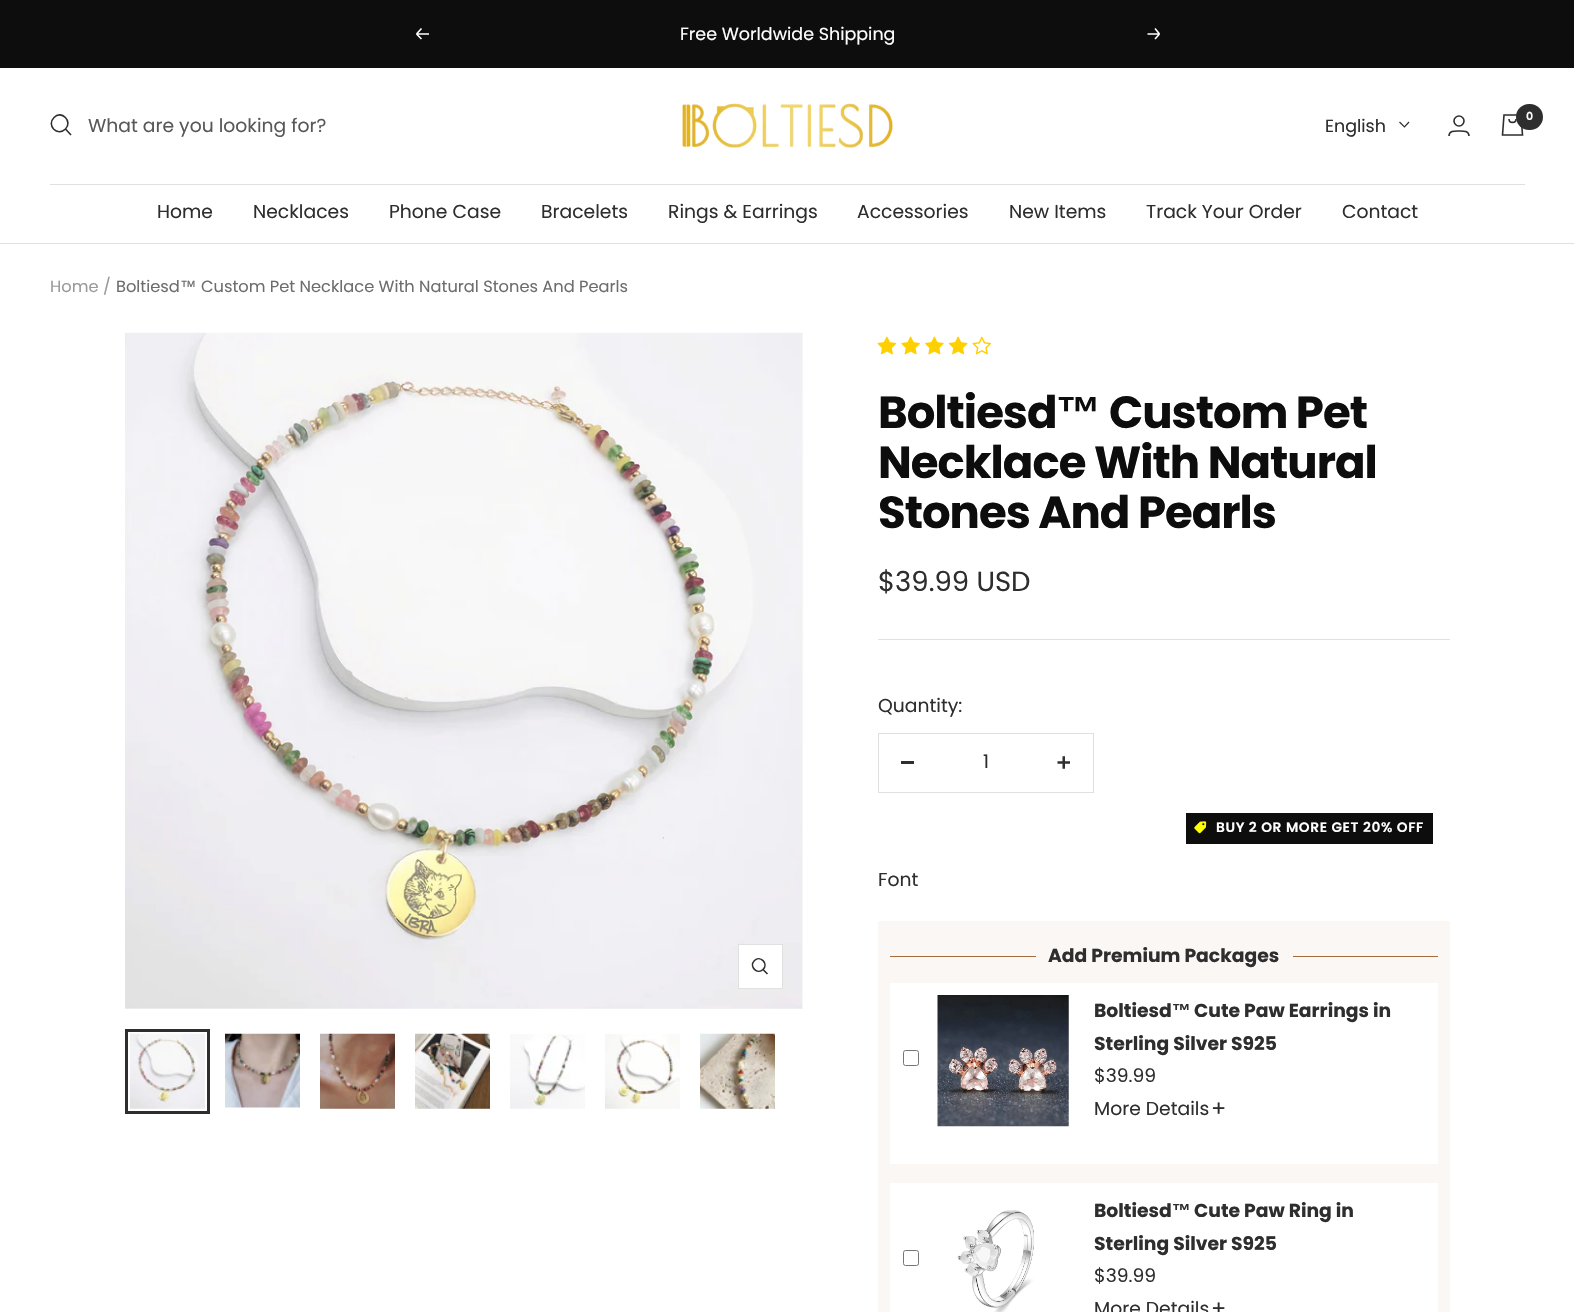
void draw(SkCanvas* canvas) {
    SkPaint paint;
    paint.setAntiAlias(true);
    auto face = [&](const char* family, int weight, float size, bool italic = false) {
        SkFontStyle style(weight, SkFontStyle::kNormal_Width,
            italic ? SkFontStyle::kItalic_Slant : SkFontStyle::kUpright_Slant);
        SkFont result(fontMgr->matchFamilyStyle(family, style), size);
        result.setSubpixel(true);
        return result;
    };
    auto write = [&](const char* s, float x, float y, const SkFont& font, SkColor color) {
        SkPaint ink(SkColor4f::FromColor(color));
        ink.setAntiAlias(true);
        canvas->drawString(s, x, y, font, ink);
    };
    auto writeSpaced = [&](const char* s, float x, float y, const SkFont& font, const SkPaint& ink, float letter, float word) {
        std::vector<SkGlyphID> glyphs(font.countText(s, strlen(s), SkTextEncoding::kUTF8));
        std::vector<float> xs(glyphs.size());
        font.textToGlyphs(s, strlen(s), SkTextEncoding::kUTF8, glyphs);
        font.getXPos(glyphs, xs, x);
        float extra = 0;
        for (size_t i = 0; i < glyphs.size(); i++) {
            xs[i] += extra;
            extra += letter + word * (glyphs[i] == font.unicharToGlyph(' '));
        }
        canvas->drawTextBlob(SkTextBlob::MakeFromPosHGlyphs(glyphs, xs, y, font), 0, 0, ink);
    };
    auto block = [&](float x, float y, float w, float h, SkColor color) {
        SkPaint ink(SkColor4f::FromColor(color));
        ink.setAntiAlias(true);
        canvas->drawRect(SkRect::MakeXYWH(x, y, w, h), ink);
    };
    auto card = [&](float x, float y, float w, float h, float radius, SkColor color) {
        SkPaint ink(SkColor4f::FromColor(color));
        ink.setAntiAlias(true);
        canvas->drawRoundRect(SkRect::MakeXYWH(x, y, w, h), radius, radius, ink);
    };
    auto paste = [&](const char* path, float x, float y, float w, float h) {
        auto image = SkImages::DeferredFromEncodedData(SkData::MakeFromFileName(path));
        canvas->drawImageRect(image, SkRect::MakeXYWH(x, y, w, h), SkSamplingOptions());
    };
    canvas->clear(SK_ColorWHITE);
    block(0, 0, 1574, 68, SkColorSetRGB(13, 13, 13));
    paint.setStyle(SkPaint::kStroke_Style);
    paint.setStrokeWidth(1.6f);
    paint.setColor(SK_ColorWHITE);
    canvas->drawPath(SkPathBuilder().moveTo(429, 34).lineTo(416.5f, 34).moveTo(416.5f, 34).lineTo(421.5f, 39).moveTo(416.5f, 34).lineTo(421.5f, 28.5f).detach(), paint);
    auto kFont1 = face("Poppins", 400, 17.5f);
    write("Free Worldwide Shipping", 680, 40, kFont1, SK_ColorWHITE);
    canvas->drawPath(SkPathBuilder().moveTo(1147.5f, 34).lineTo(1159.5f, 34).moveTo(1159.5f, 34).lineTo(1155, 39).moveTo(1159.5f, 34).lineTo(1155, 28.5f).detach(), paint);
    block(0, 243, 1574, 1, SkColorSetRGB(224, 224, 224));
    paint.setColor(SkColorSetRGB(46, 46, 46));
    canvas->drawPath(SkPathBuilder().moveTo(65.5f, 129).cubicTo(73, 121.5f, 61.5f, 109.5f, 54, 117.5f).cubicTo(46, 125.5f, 57.5f, 137, 65.5f, 129).close().moveTo(65.5f, 129).lineTo(71, 135).detach(), paint);
    auto kFont2 = face("Poppins", 400, 18.75f);
    write("What are you looking for?", 88, 132, kFont2, SkColorSetRGB(88, 88, 88));
    paste("pic1.png", 682, 103, 211, 45);
    canvas->drawCircle(1459, 121, 5, paint);
    canvas->drawPath(SkPathBuilder().moveTo(1449, 136).cubicTo(1449, 130.5f, 1455, 131, 1459, 131).cubicTo(1462.5f, 131, 1469, 130.5f, 1469, 136).detach(), paint);
    canvas->drawPath(SkPathBuilder().moveTo(1504, 115).lineTo(1521, 115).lineTo(1522.5f, 135).lineTo(1502.5f, 135).close().moveTo(1509, 119).cubicTo(1509, 123.5f, 1516, 123.5f, 1516, 119).detach(), paint);
    card(1516, 104, 27, 26, 13, SkColorSetRGB(46, 46, 46));
    auto kFont3 = face("Poppins", 600, 11);
    write("0", 1526, 120, kFont3, SK_ColorWHITE);
    write("English", 1325, 132, kFont1, SkColorSetRGB(46, 46, 46));
    paint.setStrokeWidth(1.2f);
    canvas->drawPath(SkPathBuilder().moveTo(1399.5f, 122).lineTo(1404.5f, 127).lineTo(1409, 122).detach(), paint);
    block(50, 184, 1475, 1, SkColorSetRGB(224, 224, 224));
    write("Home", 157, 218, kFont2, SkColorSetRGB(46, 46, 46));
    write("Necklaces", 253, 218, kFont2, SkColorSetRGB(46, 46, 46));
    write("Phone Case", 389, 218, kFont2, SkColorSetRGB(46, 46, 46));
    write("Bracelets", 541, 218, kFont2, SkColorSetRGB(46, 46, 46));
    write("Rings & Earrings", 668, 218, kFont2, SkColorSetRGB(46, 46, 46));
    write("Accessories", 857, 218, kFont2, SkColorSetRGB(46, 46, 46));
    write("New Items", 1009, 218, kFont2, SkColorSetRGB(46, 46, 46));
    write("Track Your Order", 1146, 218, kFont2, SkColorSetRGB(46, 46, 46));
    write("Contact", 1342, 218, kFont2, SkColorSetRGB(46, 46, 46));
    auto kFont4 = face("Poppins", 400, 16.25f);
    write("Home", 50, 292, kFont4, SkColorSetRGB(153, 153, 153));
    write("/", 103, 292, kFont4, SkColorSetRGB(153, 153, 153));
    write("Boltiesd", 116, 292, kFont4, SkColorSetRGB(109, 109, 109));
    auto kFont5 = face("Liberation Sans", 400, 16.25f);
    write("™", 180, 292, kFont5, SkColorSetRGB(109, 109, 109));
    write("Custom Pet Necklace With Natural Stones And Pearls", 201, 292, kFont4, SkColorSetRGB(109, 109, 109));
    block(125, 333, 678, 676, SkColorSetRGB(245, 245, 245));
    paste("pic2.png", 125, 332, 677, 677);
    paint.setStyle(SkPaint::kFill_Style);
    paint.setColor(SK_ColorWHITE);
    canvas->drawRect(SkRect::MakeXYWH(738.5f, 944.5f, 44, 44), paint);
    paint.setStyle(SkPaint::kStroke_Style);
    paint.setStrokeWidth(1);
    paint.setColor(SkColorSetRGB(224, 224, 224));
    canvas->drawRect(SkRect::MakeXYWH(738.5f, 944.5f, 44, 44), paint);
    paint.setStrokeWidth(1.6f);
    paint.setColor(SkColorSetRGB(46, 46, 46));
    canvas->drawPath(SkPathBuilder().moveTo(763, 969.5f).cubicTo(769, 963.5f, 760, 955, 754.5f, 960.5f).cubicTo(748.5f, 966.5f, 757.5f, 975, 763, 969.5f).close().moveTo(763, 969.5f).lineTo(767.5f, 974).detach(), paint);
    paste("pic3.png", 130, 1033, 75, 76);
    paint.setStrokeWidth(3);
    canvas->drawRect(SkRect::MakeXYWH(126.5f, 1030.5f, 82, 82), paint);
    paste("pic4.png", 225, 1033, 75, 75);
    paste("pic5.png", 320, 1033, 75, 76);
    paste("pic6.png", 415, 1033, 75, 76);
    paste("pic7.png", 510, 1034, 75, 75);
    paste("pic8.png", 605, 1034, 75, 75);
    paste("pic9.png", 700, 1033, 75, 76);
    block(878, 639, 572, 1, SkColorSetRGB(224, 224, 224));
    paste("pic10.png", 877, 336, 20, 19);
    paste("pic11.png", 901, 336, 19, 19);
    paste("pic12.png", 925, 336, 19, 19);
    paste("pic13.png", 948, 336, 20, 19);
    paste("pic14.png", 972, 336, 20, 19);
    auto kFont6 = face("Poppins", 700, 45);
    paint.setStyle(SkPaint::kFill_Style);
    paint.setColor(SkColorSetRGB(13, 13, 13));
    writeSpaced("Boltiesd", 878, 428, kFont6, paint, -1, 0);
    auto kFont7 = face("Liberation Sans", 700, 45);
    writeSpaced("™", 1056, 428, kFont7, paint, -1, 0);
    writeSpaced("Custom Pet", 1109, 428, kFont6, paint, -1, 0);
    writeSpaced("Necklace With Natural", 878, 478, kFont6, paint, -1, 0);
    writeSpaced("Stones And Pearls", 878, 528, kFont6, paint, -1, 0);
    auto kFont8 = face("Poppins", 400, 27.5f);
    write("$39.99 USD", 878, 591, kFont8, SkColorSetRGB(46, 46, 46));
    write("Quantity:", 878, 712, kFont2, SkColorSetRGB(46, 46, 46));
    paint.setStyle(SkPaint::kStroke_Style);
    paint.setStrokeWidth(1);
    paint.setColor(SkColorSetRGB(224, 224, 224));
    canvas->drawRect(SkRect::MakeXYWH(878.5f, 733.5f, 215, 59), paint);
    block(901, 761, 13, 3, SkColorSetRGB(46, 46, 46));
    write("1", 983, 768, kFont2, SkColorSetRGB(46, 46, 46));
    paste("pic15.png", 1057, 756, 13, 13);
    block(1186, 813, 247, 31, SkColorSetRGB(13, 13, 13));
    paste("pic16.png", 1194, 821, 13, 13);
    auto kFont9 = face("Poppins", 600, 13.75f);
    paint.setStyle(SkPaint::kFill_Style);
    paint.setColor(SK_ColorWHITE);
    writeSpaced("BUY 2 OR MORE GET 20% OFF", 1216, 832, kFont9, paint, 0.6f, 0);
    write("Font", 878, 886, kFont2, SkColorSetRGB(46, 46, 46));
    block(878, 921, 572, 391, SkColorSetRGB(250, 247, 245));
    block(890, 956, 548, 1, SkColorSetRGB(163, 107, 62));
    block(1036, 956, 257, 1, SkColorSetRGB(250, 247, 245));
    auto kFont10 = face("Poppins", 700, 18.75f);
    write("Add Premium Packages", 1048, 962, kFont10, SkColorSetRGB(46, 46, 46));
    block(890, 983, 548, 181, SK_ColorWHITE);
    paint.setStyle(SkPaint::kStroke_Style);
    paint.setColor(SkColorSetRGB(118, 118, 118));
    canvas->drawRoundRect(SkRect::MakeXYWH(903.5f, 1050.5f, 15, 15), 2, 2, paint);
    paste("pic17.png", 937, 995, 132, 132);
    write("Boltiesd", 1094, 1017, kFont10, SkColorSetRGB(46, 46, 46));
    auto kFont11 = face("Liberation Sans", 700, 18.75f);
    write("™", 1172, 1017, kFont11, SkColorSetRGB(46, 46, 46));
    write("Cute Paw Earrings in", 1194, 1017, kFont10, SkColorSetRGB(46, 46, 46));
    write("Sterling Silver S925", 1094, 1050, kFont10, SkColorSetRGB(46, 46, 46));
    write("$39.99", 1094, 1082, kFont2, SkColorSetRGB(46, 46, 46));
    write("More Details", 1094, 1115, kFont2, SkColorSetRGB(46, 46, 46));
    auto kFont12 = face("DejaVu Sans Mono", 400, 22);
    write("+", 1212, 1115, kFont12, SkColorSetRGB(46, 46, 46));
    block(890, 1183, 548, 129, SK_ColorWHITE);
    canvas->drawRoundRect(SkRect::MakeXYWH(903.5f, 1250.5f, 15, 15), 2, 2, paint);
    paste("pic18.png", 957, 1210, 77, 102);
    write("Boltiesd", 1094, 1217, kFont10, SkColorSetRGB(46, 46, 46));
    write("™", 1172, 1217, kFont11, SkColorSetRGB(46, 46, 46));
    write("Cute Paw Ring in", 1194, 1217, kFont10, SkColorSetRGB(46, 46, 46));
    write("Sterling Silver S925", 1094, 1250, kFont10, SkColorSetRGB(46, 46, 46));
    write("$39.99", 1094, 1282, kFont2, SkColorSetRGB(46, 46, 46));
    write("More Details", 1094, 1315, kFont2, SkColorSetRGB(46, 46, 46));
    write("+", 1212, 1315, kFont12, SkColorSetRGB(46, 46, 46));
}
